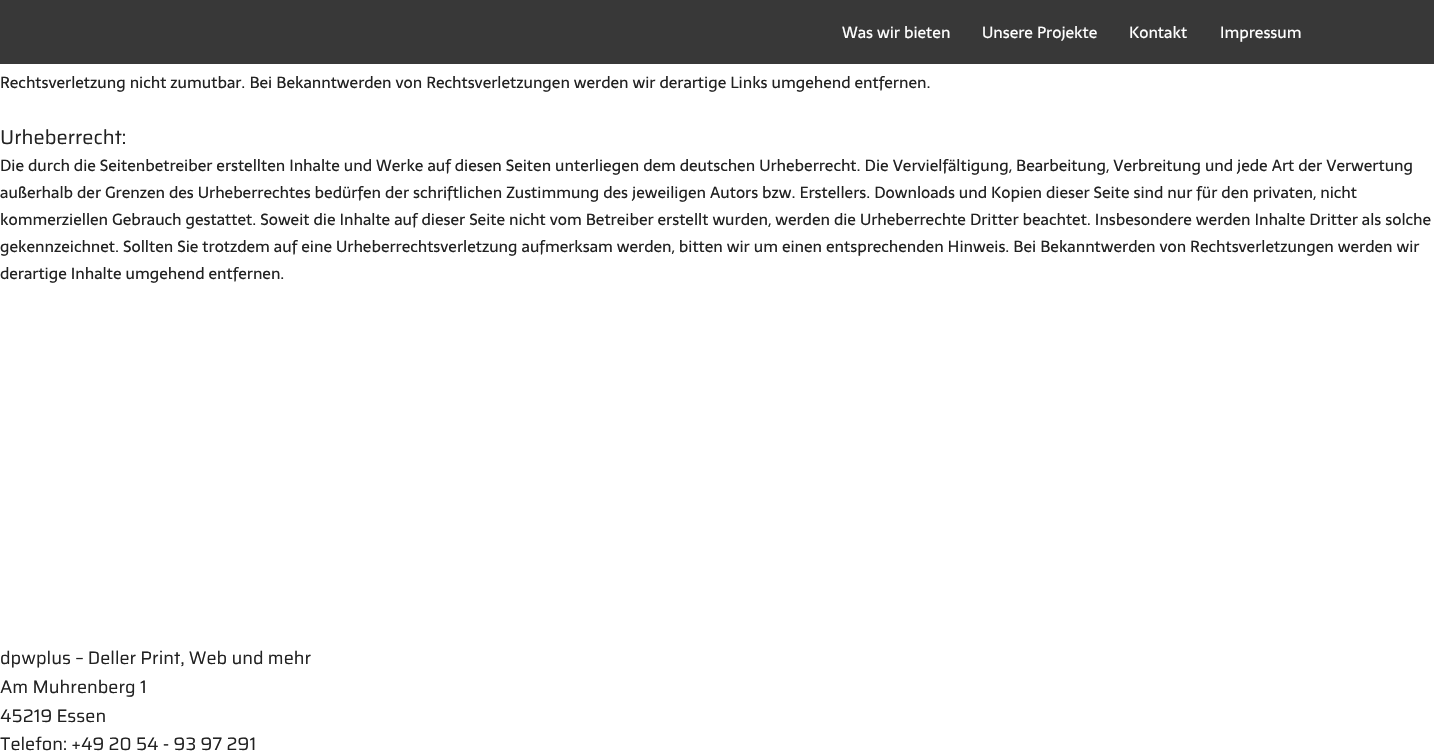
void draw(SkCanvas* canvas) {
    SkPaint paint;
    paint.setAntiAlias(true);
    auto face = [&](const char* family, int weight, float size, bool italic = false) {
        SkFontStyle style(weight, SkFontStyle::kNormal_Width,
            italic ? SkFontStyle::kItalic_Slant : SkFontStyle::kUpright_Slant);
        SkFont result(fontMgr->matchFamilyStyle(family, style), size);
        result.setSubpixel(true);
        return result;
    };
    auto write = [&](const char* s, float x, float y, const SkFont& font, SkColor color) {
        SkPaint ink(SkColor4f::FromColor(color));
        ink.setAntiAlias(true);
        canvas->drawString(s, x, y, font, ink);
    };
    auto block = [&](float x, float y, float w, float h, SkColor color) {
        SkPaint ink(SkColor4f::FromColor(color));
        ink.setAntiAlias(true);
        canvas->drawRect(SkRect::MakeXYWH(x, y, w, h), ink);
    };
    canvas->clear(SK_ColorWHITE);
    block(0, 0, 1434, 64, SkColorSetRGB(56, 56, 56));
    auto kFont1 = face("Sarala", 400, 16);
    write("Was wir bieten", 842, 38, kFont1, SK_ColorWHITE);
    write("Unsere Projekte", 982, 38, kFont1, SK_ColorWHITE);
    write("Kontakt", 1129, 38, kFont1, SK_ColorWHITE);
    write("Impressum", 1220, 38, kFont1, SK_ColorWHITE);
    write("Rechtsverletzung nicht zumutbar. Bei Bekanntwerden von Rechtsverletzungen werden wir derartige Links umgehend entfernen.", 0, 88, kFont1, SkColorSetRGB(34, 34, 34));
    auto kFont2 = face("Saira", 400, 20);
    write("Urheberrecht:", 0, 144, kFont2, SkColorSetRGB(34, 34, 34));
    write("Die durch die Seitenbetreiber erstellten Inhalte und Werke auf diesen Seiten unterliegen dem deutschen Urheberrecht. Die Vervielfältigung, Bearbeitung, Verbreitung und jede Art der Verwertung", 0, 171, kFont1, SkColorSetRGB(34, 34, 34));
    write("außerhalb der Grenzen des Urheberrechtes bedürfen der schriftlichen Zustimmung des jeweiligen Autors bzw. Erstellers. Downloads und Kopien dieser Seite sind nur für den privaten, nicht", 0, 198, kFont1, SkColorSetRGB(34, 34, 34));
    write("kommerziellen Gebrauch gestattet. Soweit die Inhalte auf dieser Seite nicht vom Betreiber erstellt wurden, werden die Urheberrechte Dritter beachtet. Insbesondere werden Inhalte Dritter als solche", 0, 225, kFont1, SkColorSetRGB(34, 34, 34));
    write("gekennzeichnet. Sollten Sie trotzdem auf eine Urheberrechtsverletzung aufmerksam werden, bitten wir um einen entsprechenden Hinweis. Bei Bekanntwerden von Rechtsverletzungen werden wir", 0, 252, kFont1, SkColorSetRGB(34, 34, 34));
    write("derartige Inhalte umgehend entfernen.", 0, 279, kFont1, SkColorSetRGB(34, 34, 34));
    auto kFont3 = face("Saira", 400, 18);
    write("dpwplus – Deller Print, Web und mehr", 0, 664, kFont3, SkColorSetRGB(34, 34, 34));
    write("Am Muhrenberg 1", 0, 693, kFont3, SkColorSetRGB(34, 34, 34));
    write("45219 Essen", 0, 722, kFont3, SkColorSetRGB(34, 34, 34));
    write("Telefon: +49 20 54 - 93 97 291", 0, 750, kFont3, SkColorSetRGB(34, 34, 34));
}
